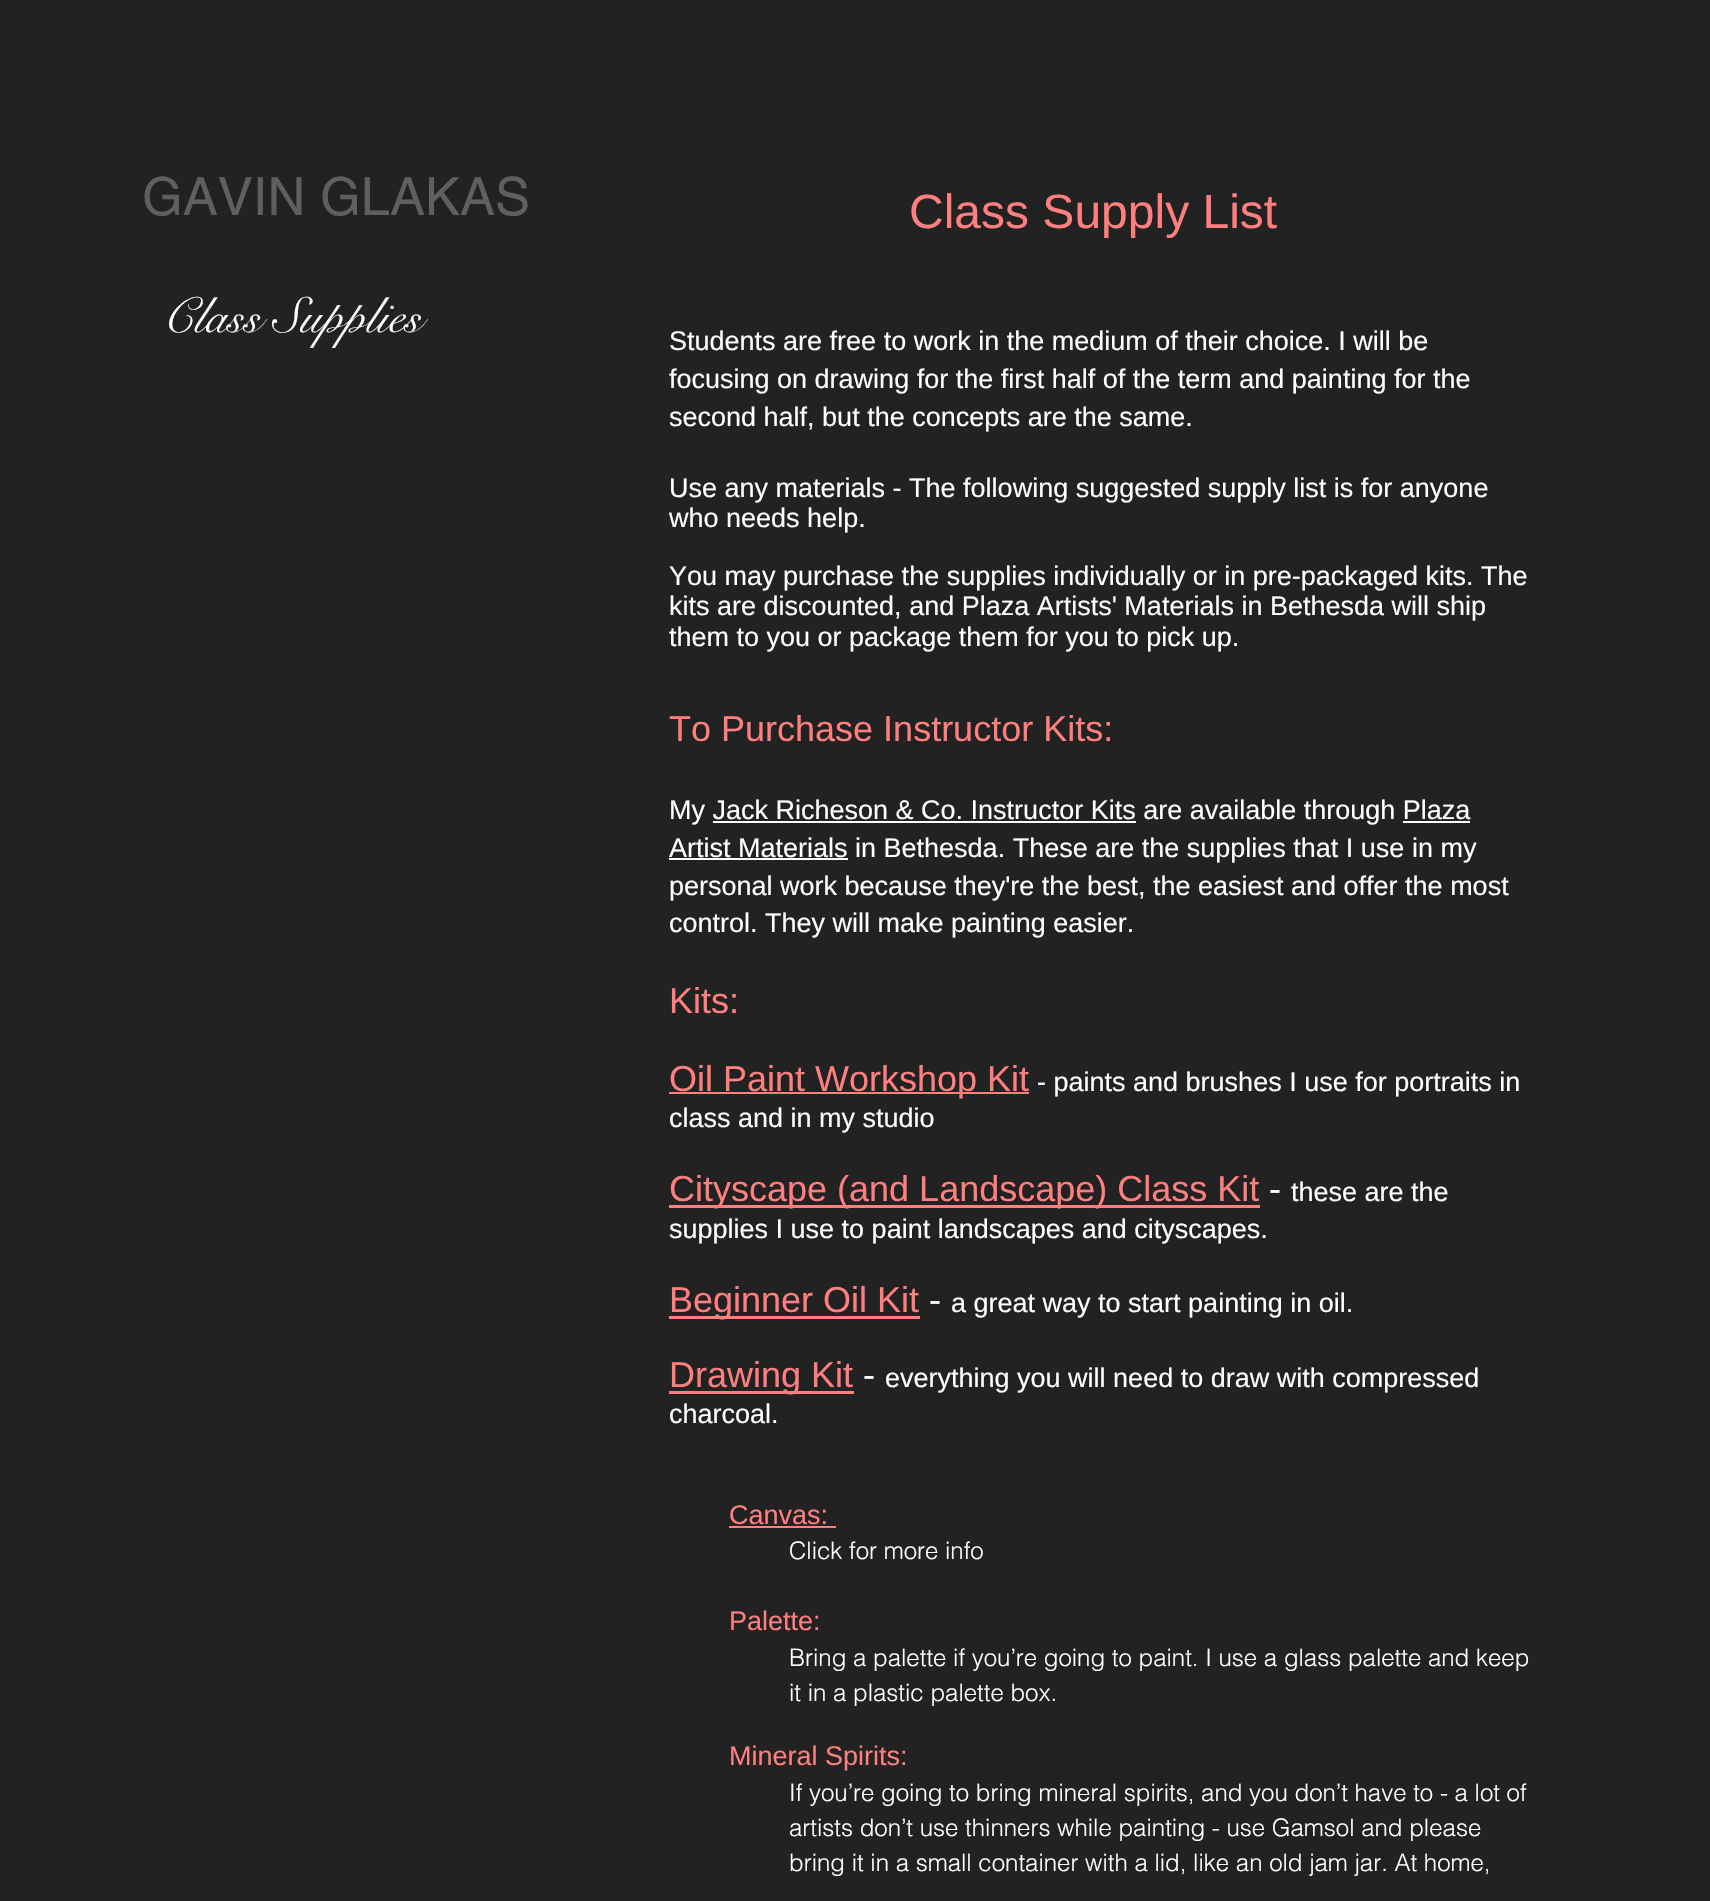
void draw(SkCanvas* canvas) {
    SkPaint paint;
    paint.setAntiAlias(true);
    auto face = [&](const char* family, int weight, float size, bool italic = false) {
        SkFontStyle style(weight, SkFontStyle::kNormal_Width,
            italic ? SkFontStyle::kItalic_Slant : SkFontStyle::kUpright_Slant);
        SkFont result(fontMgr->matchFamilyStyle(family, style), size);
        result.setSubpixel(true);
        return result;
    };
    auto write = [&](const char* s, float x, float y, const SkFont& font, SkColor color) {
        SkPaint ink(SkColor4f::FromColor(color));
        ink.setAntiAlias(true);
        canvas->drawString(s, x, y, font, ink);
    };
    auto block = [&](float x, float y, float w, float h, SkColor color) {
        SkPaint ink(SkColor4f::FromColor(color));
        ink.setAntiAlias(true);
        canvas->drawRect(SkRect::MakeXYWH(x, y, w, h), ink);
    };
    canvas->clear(SkColorSetRGB(34, 34, 34));
    auto kFont1 = face("helvetica", 400, 52.5f);
    write("GAVIN GLAKAS", 142, 215, kFont1, SkColorSetRGB(96, 94, 94));
    auto kFont2 = face("Liberation Sans", 400, 48);
    write("Class Supply List", 909, 228, kFont2, SkColorSetRGB(255, 127, 127));
    auto kFont3 = face("Liberation Sans", 400, 27);
    write("Students are free to work in the medium of their choice. I will be", 669, 350, kFont3, SK_ColorWHITE);
    write("focusing on drawing for the first half of the term and painting for the", 669, 388, kFont3, SK_ColorWHITE);
    write("second half, but the concepts are the same.", 669, 426, kFont3, SK_ColorWHITE);
    write("Use any materials - The following suggested supply list is for anyone", 669, 497, kFont3, SK_ColorWHITE);
    write("who needs help.", 669, 527, kFont3, SK_ColorWHITE);
    write("You may purchase the supplies individually or in pre-packaged kits. The", 669, 585, kFont3, SK_ColorWHITE);
    write("kits are discounted, and Plaza Artists' Materials in Bethesda will ship", 669, 615, kFont3, SK_ColorWHITE);
    write("them to you or package them for you to pick up.", 669, 646, kFont3, SK_ColorWHITE);
    auto kFont4 = face("Liberation Sans", 400, 36);
    write("To Purchase Instructor Kits:", 669, 741, kFont4, SkColorSetRGB(255, 127, 127));
    write("My Jack Richeson & Co. Instructor Kits are available through Plaza", 669, 819, kFont3, SK_ColorWHITE);
    block(713, 821, 423, 2, SK_ColorWHITE);
    block(1403, 821, 67, 2, SK_ColorWHITE);
    block(669, 858, 179, 2, SK_ColorWHITE);
    write("Artist Materials in Bethesda. These are the supplies that I use in my", 669, 857, kFont3, SK_ColorWHITE);
    write("personal work because they're the best, the easiest and offer the most", 669, 895, kFont3, SK_ColorWHITE);
    write("control. They will make painting easier.", 669, 932, kFont3, SK_ColorWHITE);
    write("Kits:", 669, 1013, kFont4, SkColorSetRGB(255, 127, 127));
    block(669, 1092, 360, 2, SkColorSetRGB(255, 127, 127));
    write("Oil Paint Workshop Kit", 669, 1091, kFont4, SkColorSetRGB(255, 127, 127));
    write("- paints and brushes I use for portraits in", 1037, 1091, kFont3, SK_ColorWHITE);
    write("class and in my studio", 669, 1127, kFont3, SK_ColorWHITE);
    block(669, 1205, 591, 3, SkColorSetRGB(255, 127, 127));
    write("Cityscape (and Landscape) Class Kit", 669, 1201, kFont4, SkColorSetRGB(255, 127, 127));
    write("-", 1269, 1201, kFont4, SK_ColorWHITE);
    write("these are the", 1291, 1201, kFont3, SK_ColorWHITE);
    write("supplies I use to paint landscapes and cityscapes.", 669, 1238, kFont3, SK_ColorWHITE);
    block(669, 1316, 251, 3, SkColorSetRGB(255, 127, 127));
    write("Beginner Oil Kit", 669, 1312, kFont4, SkColorSetRGB(255, 127, 127));
    write("-", 929, 1312, kFont4, SK_ColorWHITE);
    write("a great way to start painting in oil.", 951, 1312, kFont3, SK_ColorWHITE);
    block(669, 1391, 185, 3, SkColorSetRGB(255, 127, 127));
    write("Drawing Kit", 669, 1387, kFont4, SkColorSetRGB(255, 127, 127));
    write("-", 863, 1387, kFont4, SK_ColorWHITE);
    write("everything you will need to draw with compressed", 885, 1387, kFont3, SK_ColorWHITE);
    write("charcoal.", 669, 1423, kFont3, SK_ColorWHITE);
    write("Canvas:", 729, 1524, kFont3, SkColorSetRGB(255, 127, 127));
    block(729, 1526, 107, 2, SkColorSetRGB(255, 127, 127));
    auto kFont5 = face("helvetica", 300, 24);
    write("Click for more info", 789, 1559, kFont5, SK_ColorWHITE);
    write("Palette:", 729, 1630, kFont3, SkColorSetRGB(255, 127, 127));
    write("Bring a palette if you’re going to paint. I use a glass palette and keep", 789, 1666, kFont5, SK_ColorWHITE);
    write("it in a plastic palette box.", 789, 1701, kFont5, SK_ColorWHITE);
    write("Mineral Spirits:", 729, 1765, kFont3, SkColorSetRGB(255, 127, 127));
    write("If you’re going to bring mineral spirits, and you don’t have to - a lot of", 789, 1801, kFont5, SK_ColorWHITE);
    write("artists don’t use thinners while painting - use Gamsol and please", 789, 1836, kFont5, SK_ColorWHITE);
    write("bring it in a small container with a lid, like an old jam jar. At home,", 789, 1871, kFont5, SK_ColorWHITE);
    auto kFont6 = face("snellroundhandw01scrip", 400, 49.5f);
    write("Class Supplies", 162, 332, kFont6, SK_ColorWHITE);
}
